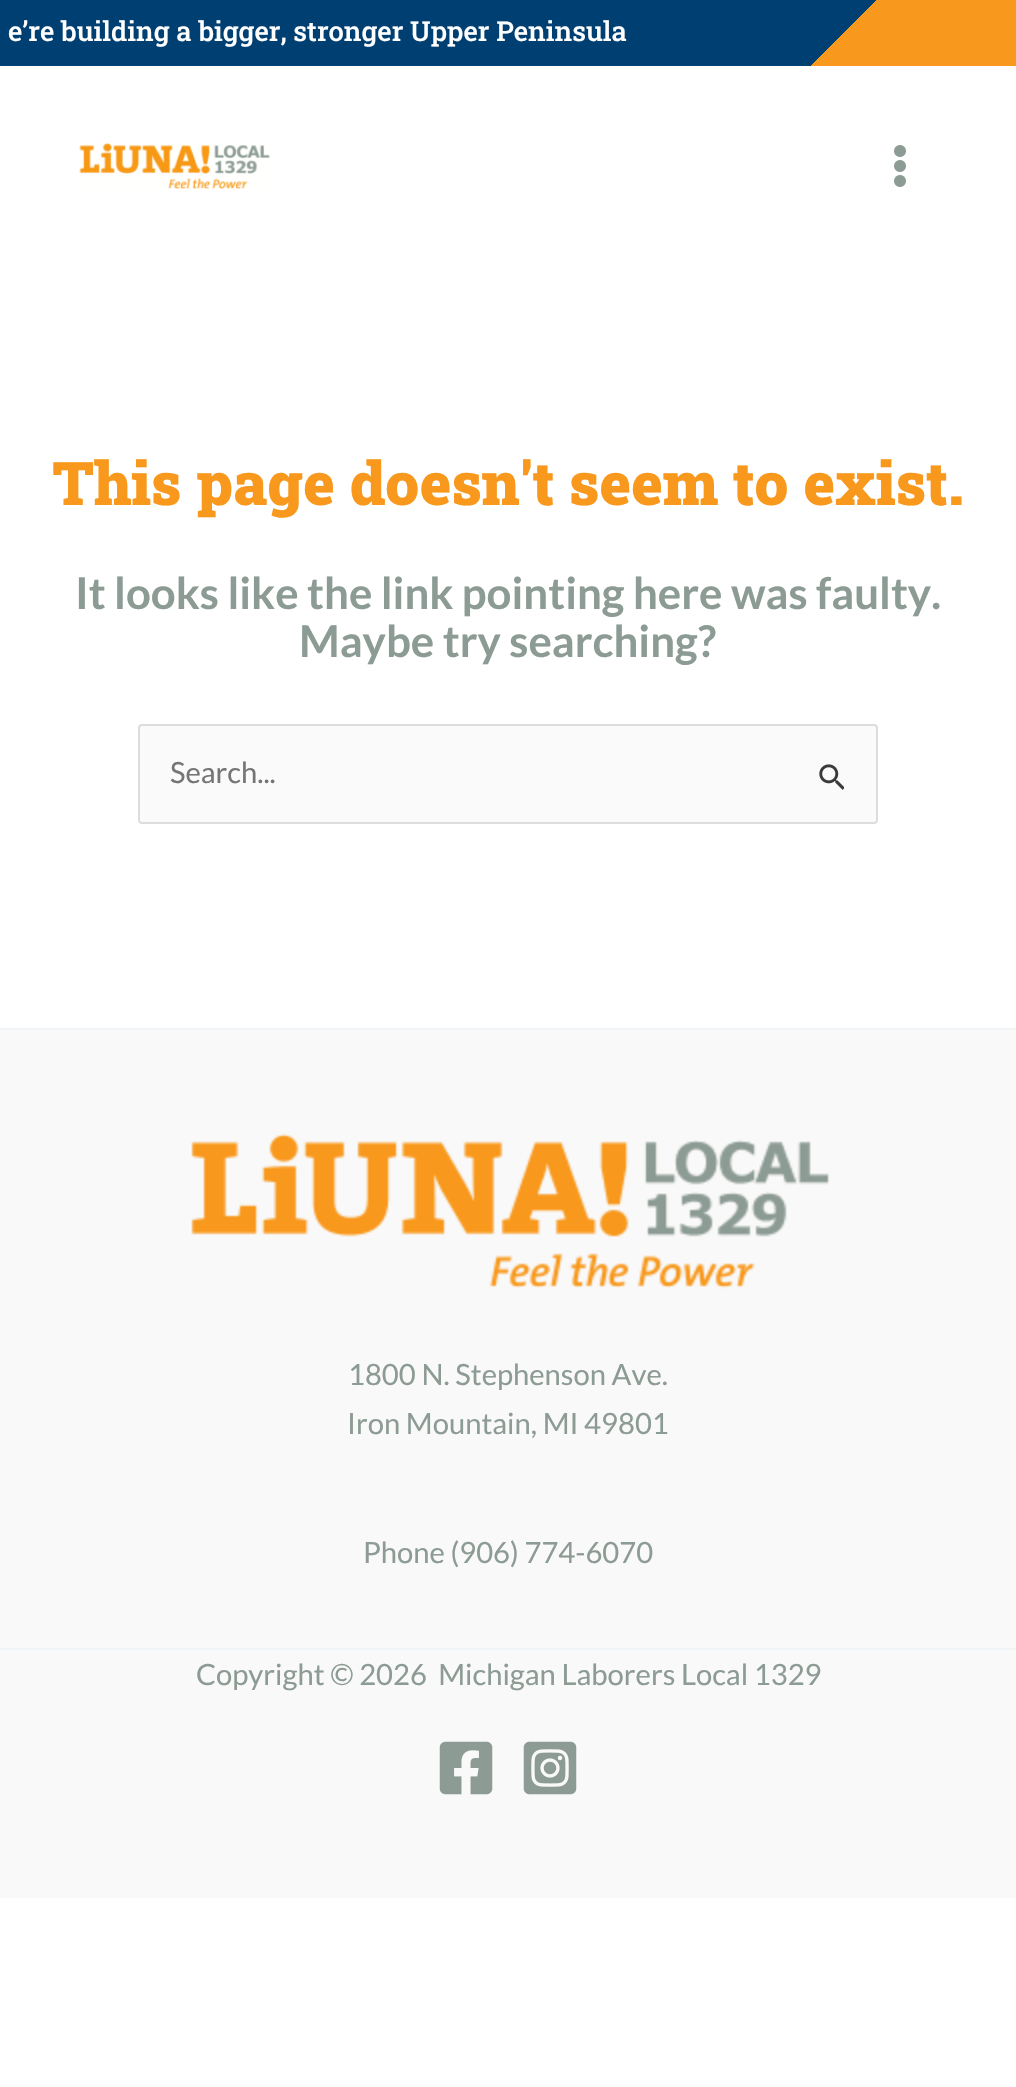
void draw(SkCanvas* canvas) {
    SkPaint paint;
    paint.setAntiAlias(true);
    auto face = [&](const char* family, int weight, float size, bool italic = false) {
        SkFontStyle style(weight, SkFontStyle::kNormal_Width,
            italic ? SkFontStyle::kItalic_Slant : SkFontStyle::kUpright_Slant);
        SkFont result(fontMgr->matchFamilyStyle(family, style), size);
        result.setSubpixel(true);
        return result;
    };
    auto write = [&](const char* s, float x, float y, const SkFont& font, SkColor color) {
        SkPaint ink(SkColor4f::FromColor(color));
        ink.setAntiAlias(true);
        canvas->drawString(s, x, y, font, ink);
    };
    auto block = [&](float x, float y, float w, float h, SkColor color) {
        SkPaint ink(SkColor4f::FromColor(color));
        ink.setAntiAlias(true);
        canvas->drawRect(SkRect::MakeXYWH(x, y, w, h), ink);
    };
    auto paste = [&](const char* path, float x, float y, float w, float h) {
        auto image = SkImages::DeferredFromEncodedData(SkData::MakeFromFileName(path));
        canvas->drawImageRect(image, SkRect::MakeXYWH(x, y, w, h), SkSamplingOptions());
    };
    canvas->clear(SK_ColorWHITE);
    {
        const SkColor colors[] = {SkColorSetRGB(0, 63, 114), SkColorSetRGB(248, 152, 28)};
        const float stops[] = {0.81f, 0.81f};
        const SkPoint ends[] = {{237, -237}, {779, 304}};
        paint.setShader(SkGradientShader::MakeLinear(ends, colors, stops, 2, SkTileMode::kClamp));
        paint.setAlpha(255);
    }
    canvas->drawRect(SkRect::MakeXYWH(0, 0, 1016, 66), paint);
    auto kFont1 = face("Roboto Slab", 500, 27.4f);
    write("e’re building a bigger, stronger Upper Peninsula", 8, 41, kFont1, SK_ColorWHITE);
    paste("pic1.png", 79, 143, 191, 46);
    paste("pic2.png", 894, 145, 12, 42);
    auto kFont2 = face("Roboto Slab", 900, 60);
    write("This page doesn't seem to exist.", 53, 505, kFont2, SkColorSetRGB(248, 152, 28));
    auto kFont3 = face("Lato", 700, 43.75f);
    write("It looks like the link pointing here was faulty.", 75, 609, kFont3, SkColorSetRGB(140, 155, 147));
    write("Maybe try searching?", 299, 657, kFont3, SkColorSetRGB(140, 155, 147));
    paint.setShader(nullptr);
    paint.setColor(SkColorSetRGB(250, 250, 250));
    canvas->drawRoundRect(SkRect::MakeXYWH(139, 725, 738, 98), 3, 3, paint);
    paint.setStyle(SkPaint::kStroke_Style);
    paint.setStrokeWidth(2);
    paint.setColor(SkColorSetRGB(221, 221, 221));
    canvas->drawRoundRect(SkRect::MakeXYWH(139, 725, 738, 98), 3, 3, paint);
    auto kFont4 = face("Lato", 400, 29.2f);
    write("Search...", 170, 783, kFont4, SkColorSetRGB(117, 117, 117));
    paste("pic3.png", 819, 764, 25, 26);
    block(0, 1030, 1016, 618, SkColorSetRGB(249, 249, 249));
    block(0, 1028, 1016, 2, SkColorSetRGB(242, 245, 247));
    paste("pic4.png", 191, 1133, 639, 156);
    write("1800 N. Stephenson Ave.", 348, 1385, kFont4, SkColorSetRGB(140, 155, 147));
    write("Iron Mountain, MI 49801", 347, 1434, kFont4, SkColorSetRGB(140, 155, 147));
    write("Phone (906) 774-6070", 363, 1563, kFont4, SkColorSetRGB(140, 155, 147));
    block(0, 1650, 1016, 248, SkColorSetRGB(249, 249, 249));
    block(0, 1648, 1016, 2, SkColorSetRGB(242, 245, 247));
    write("Copyright © 2026  Michigan Laborers Local 1329", 196, 1685, kFont4, SkColorSetRGB(140, 155, 147));
    paste("pic5.png", 439, 1741, 54, 54);
    paste("pic6.png", 523, 1741, 54, 54);
}
